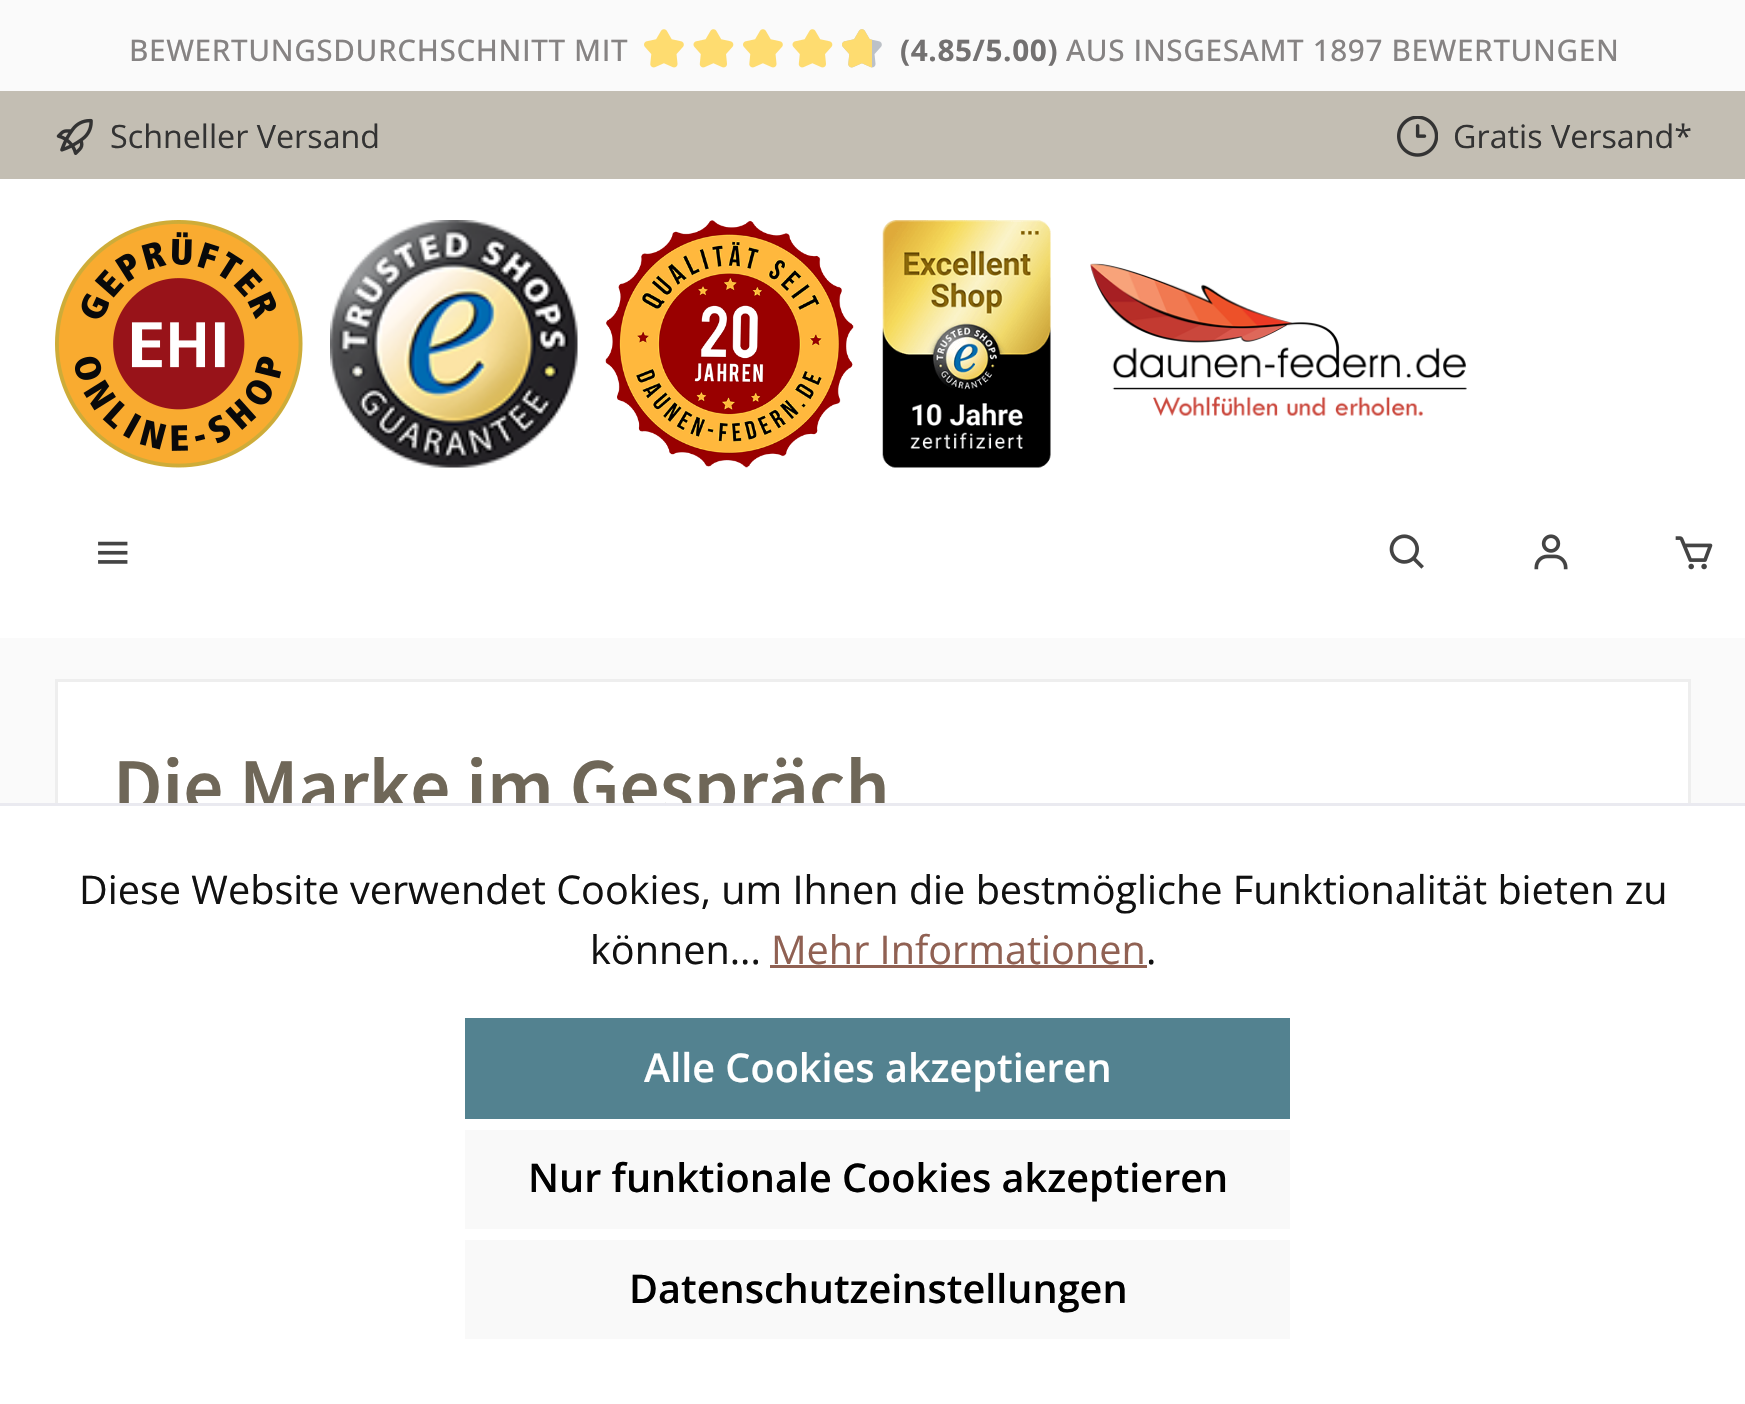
void draw(SkCanvas* canvas) {
    SkPaint paint;
    paint.setAntiAlias(true);
    auto face = [&](const char* family, int weight, float size, bool italic = false) {
        SkFontStyle style(weight, SkFontStyle::kNormal_Width,
            italic ? SkFontStyle::kItalic_Slant : SkFontStyle::kUpright_Slant);
        SkFont result(fontMgr->matchFamilyStyle(family, style), size);
        result.setSubpixel(true);
        return result;
    };
    auto write = [&](const char* s, float x, float y, const SkFont& font, SkColor color) {
        SkPaint ink(SkColor4f::FromColor(color));
        ink.setAntiAlias(true);
        canvas->drawString(s, x, y, font, ink);
    };
    auto writeSpaced = [&](const char* s, float x, float y, const SkFont& font, const SkPaint& ink, float letter, float word) {
        std::vector<SkGlyphID> glyphs(font.countText(s, strlen(s), SkTextEncoding::kUTF8));
        std::vector<float> xs(glyphs.size());
        font.textToGlyphs(s, strlen(s), SkTextEncoding::kUTF8, glyphs);
        font.getXPos(glyphs, xs, x);
        float extra = 0;
        for (size_t i = 0; i < glyphs.size(); i++) {
            xs[i] += extra;
            extra += letter + word * (glyphs[i] == font.unicharToGlyph(' '));
        }
        canvas->drawTextBlob(SkTextBlob::MakeFromPosHGlyphs(glyphs, xs, y, font), 0, 0, ink);
    };
    auto block = [&](float x, float y, float w, float h, SkColor color) {
        SkPaint ink(SkColor4f::FromColor(color));
        ink.setAntiAlias(true);
        canvas->drawRect(SkRect::MakeXYWH(x, y, w, h), ink);
    };
    auto paste = [&](const char* path, float x, float y, float w, float h) {
        auto image = SkImages::DeferredFromEncodedData(SkData::MakeFromFileName(path));
        canvas->drawImageRect(image, SkRect::MakeXYWH(x, y, w, h), SkSamplingOptions());
    };
    canvas->clear(SkColorSetRGB(250, 250, 250));
    auto kFont1 = face("Open Sans", 500, 29.75f);
    paint.setColor(SkColorSetRGB(134, 131, 131));
    writeSpaced("BEWERTUNGSDURCHSCHNITT MIT", 129, 61, kFont1, paint, 0.6f, 0);
    paste("pic1.png", 644, 29, 40, 39);
    paste("pic2.png", 693, 29, 41, 39);
    paste("pic1.png", 743, 29, 40, 39);
    paste("pic2.png", 792, 29, 41, 39);
    paste("pic3.png", 842, 29, 40, 39);
    paste("pic4.png", 842, 29, 30, 39);
    auto kFont2 = face("Open Sans", 700, 29.75f);
    paint.setColor(SkColorSetRGB(115, 113, 113));
    writeSpaced("(4.85/5.00)", 900, 61, kFont2, paint, 0.6f, 0);
    paint.setColor(SkColorSetRGB(134, 131, 131));
    writeSpaced("AUS INSGESAMT 1897 BEWERTUNGEN", 1066, 61, kFont1, paint, 0.6f, 0);
    block(0, 91, 1745, 88, SkColorSetRGB(195, 190, 179));
    paste("pic5.png", 56, 118, 37, 37);
    auto kFont3 = face("Open Sans", 400, 32.25f);
    write("Schneller Versand", 110, 148, kFont3, SkColorSetRGB(51, 51, 51));
    paste("pic6.png", 1397, 116, 41, 41);
    write("Gratis Versand*", 1453, 148, kFont3, SkColorSetRGB(51, 51, 51));
    block(0, 179, 1745, 459, SK_ColorWHITE);
    paste("pic7.png", 55, 220, 248, 248);
    paste("pic8.png", 330, 220, 248, 248);
    paste("pic9.png", 605, 220, 249, 248);
    paste("pic10.png", 882, 220, 169, 248);
    paste("pic11.png", 1090, 263, 377, 153);
    paste("pic12.png", 98, 541, 30, 23);
    paste("pic13.png", 1389, 534, 35, 35);
    paste("pic14.png", 1534, 534, 34, 36);
    paste("pic15.png", 1675, 536, 38, 34);
    block(58, 682, 1630, 121, SK_ColorWHITE);
    paint.setStyle(SkPaint::kStroke_Style);
    paint.setStrokeWidth(3);
    paint.setColor(SkColorSetRGB(238, 238, 238));
    canvas->drawRect(SkRect::MakeXYWH(56.5f, 680.5f, 1633, 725), paint);
    auto kFont4 = face("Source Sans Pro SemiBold", 600, 79.25f);
    write("Die Marke im Gespräch", 113, 813, kFont4, SkColorSetRGB(111, 103, 88));
    block(0, 806, 1745, 598, SK_ColorWHITE);
    block(0, 803, 1745, 3, SkColorSetRGB(234, 234, 240));
    auto kFont5 = face("Open Sans", 400, 39.6f);
    write("Diese Website verwendet Cookies, um Ihnen die bestmögliche Funktionalität bieten zu", 79, 904, kFont5, SkColorSetRGB(17, 17, 17));
    write("können...", 590, 964, kFont5, SkColorSetRGB(17, 17, 17));
    write("Mehr Informationen", 771, 964, kFont5, SkColorSetRGB(144, 97, 83));
    block(770, 965, 377, 3, SkColorSetRGB(144, 97, 83));
    write(".", 1146, 964, kFont5, SkColorSetRGB(17, 17, 17));
    block(465, 1018, 825, 101, SkColorSetRGB(83, 130, 144));
    auto kFont6 = face("Open Sans", 600, 39.6f);
    write("Alle Cookies akzeptieren", 644, 1082, kFont6, SK_ColorWHITE);
    block(465, 1130, 825, 99, SkColorSetRGB(249, 249, 249));
    write("Nur funktionale Cookies akzeptieren", 528, 1192, kFont6, SK_ColorBLACK);
    block(465, 1240, 825, 99, SkColorSetRGB(249, 249, 249));
    write("Datenschutzeinstellungen", 629, 1303, kFont6, SK_ColorBLACK);
}
